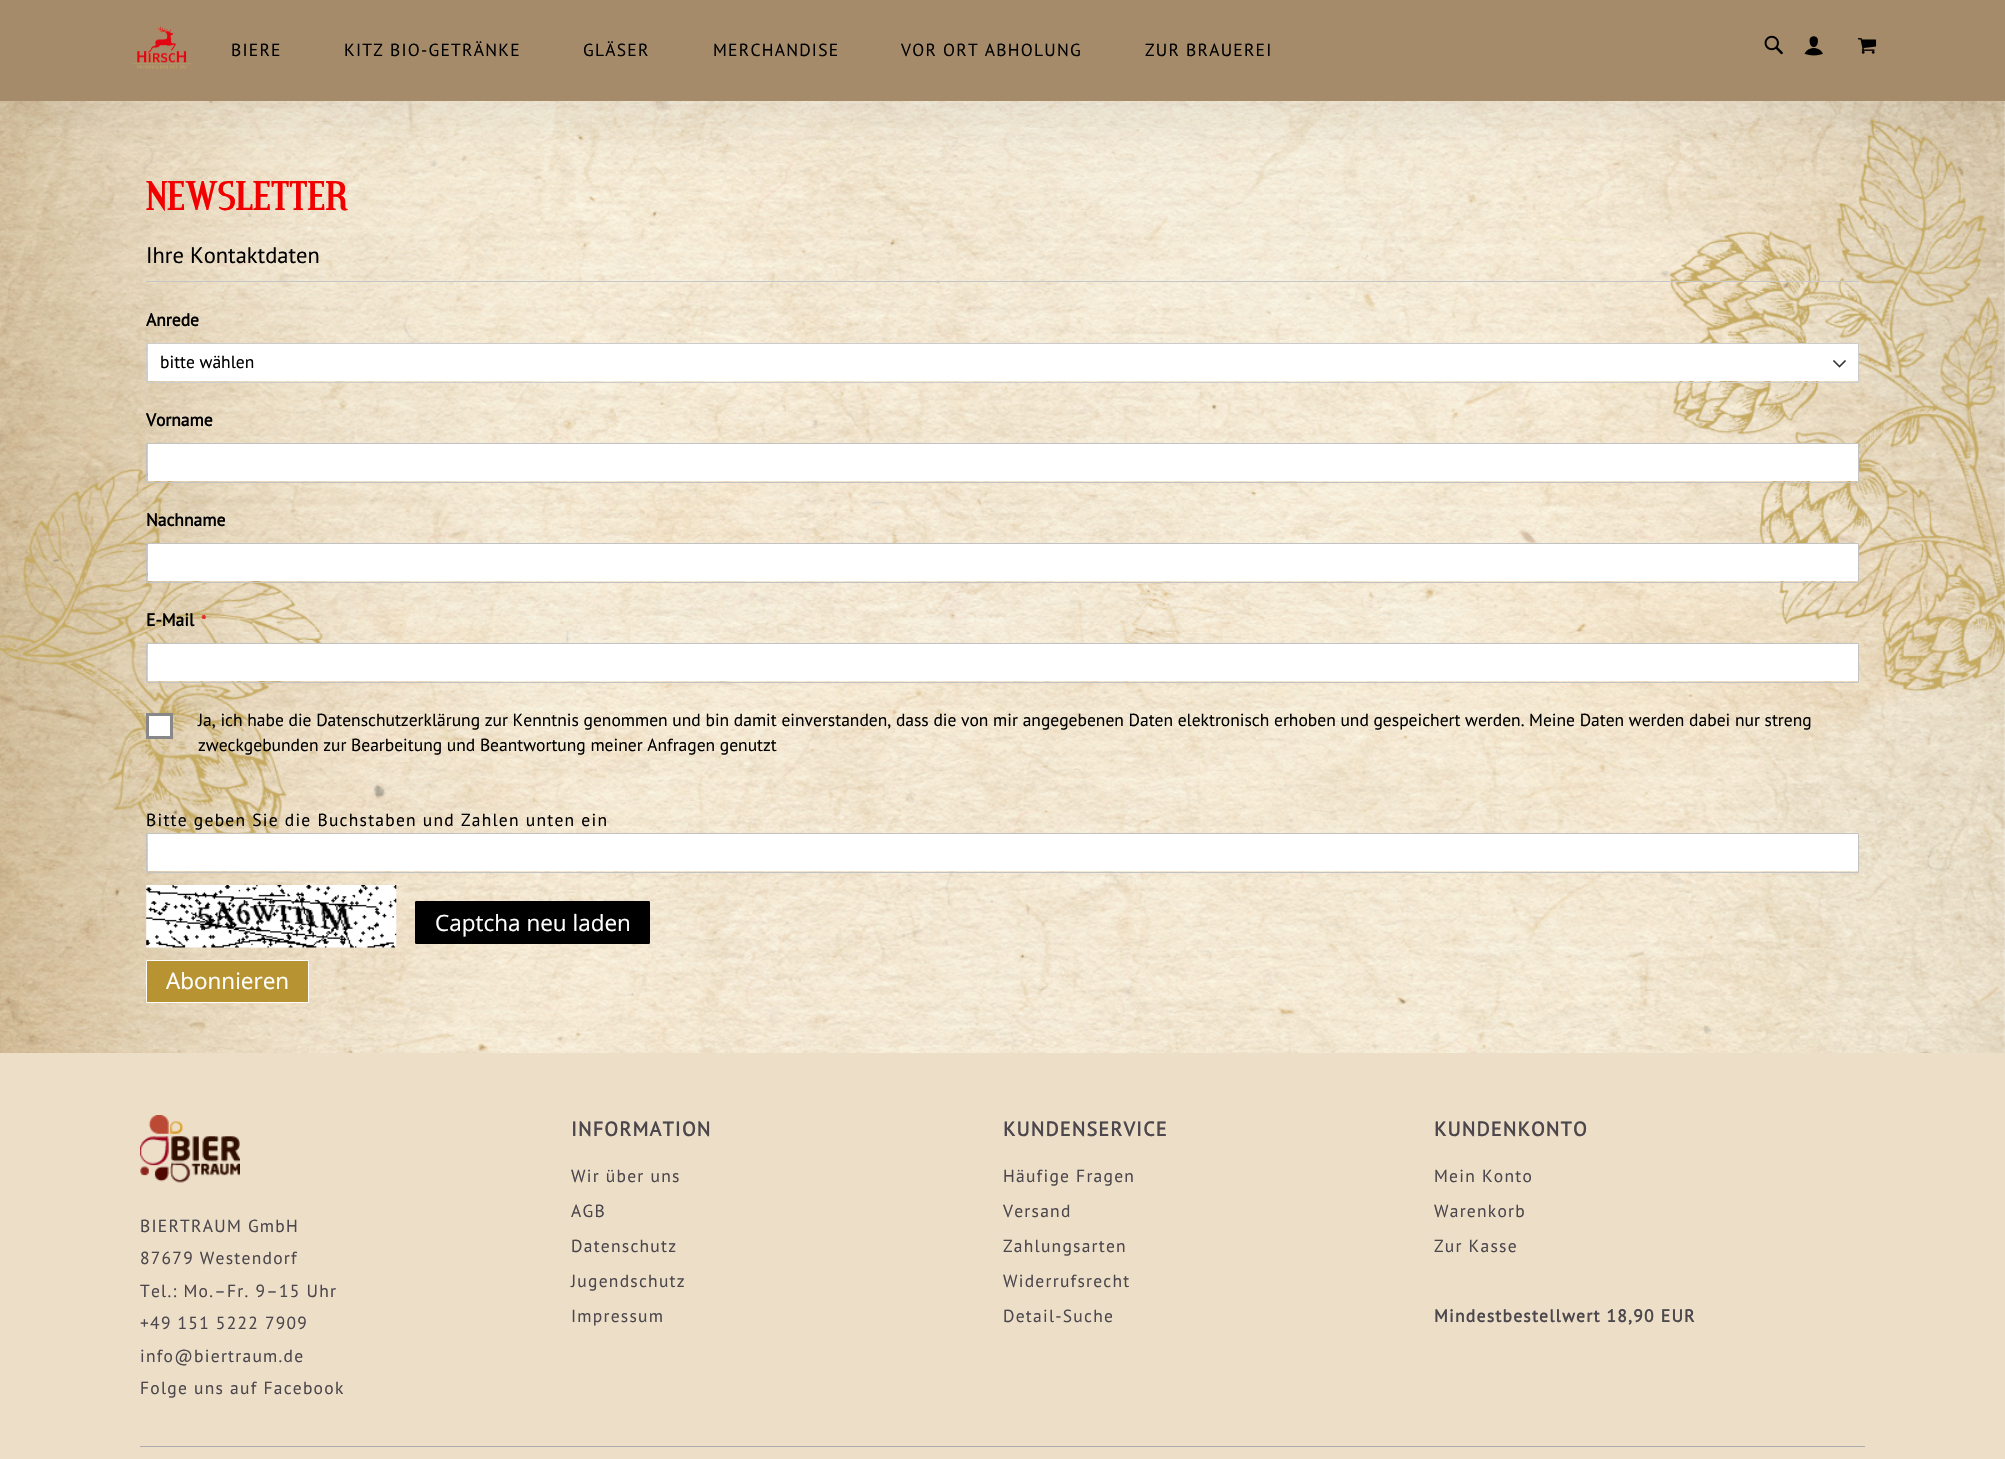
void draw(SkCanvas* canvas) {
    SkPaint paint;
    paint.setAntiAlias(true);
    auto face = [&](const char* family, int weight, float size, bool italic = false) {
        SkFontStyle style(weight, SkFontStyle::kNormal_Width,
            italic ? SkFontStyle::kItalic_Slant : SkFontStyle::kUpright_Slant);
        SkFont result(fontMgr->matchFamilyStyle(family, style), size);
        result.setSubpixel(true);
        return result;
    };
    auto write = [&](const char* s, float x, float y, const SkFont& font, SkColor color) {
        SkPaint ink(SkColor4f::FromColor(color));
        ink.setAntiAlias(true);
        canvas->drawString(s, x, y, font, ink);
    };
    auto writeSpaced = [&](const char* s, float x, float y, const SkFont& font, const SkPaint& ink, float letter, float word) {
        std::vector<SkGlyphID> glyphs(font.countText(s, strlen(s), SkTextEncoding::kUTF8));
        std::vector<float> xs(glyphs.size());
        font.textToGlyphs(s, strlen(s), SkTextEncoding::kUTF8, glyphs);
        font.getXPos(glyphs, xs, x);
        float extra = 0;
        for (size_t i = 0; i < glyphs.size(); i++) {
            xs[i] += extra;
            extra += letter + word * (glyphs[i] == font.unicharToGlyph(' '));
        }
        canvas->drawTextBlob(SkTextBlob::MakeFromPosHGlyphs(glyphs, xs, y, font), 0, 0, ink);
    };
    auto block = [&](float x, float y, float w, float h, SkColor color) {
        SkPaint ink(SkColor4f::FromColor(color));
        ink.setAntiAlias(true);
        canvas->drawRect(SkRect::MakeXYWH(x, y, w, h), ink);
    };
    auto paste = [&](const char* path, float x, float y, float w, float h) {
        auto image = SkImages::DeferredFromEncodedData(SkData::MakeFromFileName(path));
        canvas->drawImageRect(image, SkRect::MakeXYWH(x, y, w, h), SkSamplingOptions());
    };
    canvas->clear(SK_ColorWHITE);
    paste("pic1.png", 0, 101, 2005, 952);
    paint.setColor(SkColorSetARGB(13, 0, 0, 0));
    paint.setMaskFilter(SkMaskFilter::MakeBlur(kNormal_SkBlurStyle, 19));
    canvas->drawRect(SkRect::MakeXYWH(0, 25, 2005, 101), paint);
    paint.setMaskFilter(nullptr);
    block(0, 0, 2005, 101, SkColorSetRGB(165, 139, 106));
    paste("pic2.png", 132, 26, 59, 43);
    auto kFont1 = face("PT Sans", 400, 17.5f);
    paint.setColor(SK_ColorBLACK);
    writeSpaced("BIERE", 231, 56, kFont1, paint, 1.25f, 0);
    writeSpaced("KITZ BIO-GETRÄNKE", 344, 56, kFont1, paint, 1.25f, 0);
    writeSpaced("GLÄSER", 583, 56, kFont1, paint, 1.25f, 0);
    writeSpaced("MERCHANDISE", 713, 56, kFont1, paint, 1.25f, 0);
    writeSpaced("VOR ORT ABHOLUNG", 901, 56, kFont1, paint, 1.25f, 0);
    writeSpaced("ZUR BRAUEREI", 1145, 56, kFont1, paint, 1.25f, 0);
    paste("pic3.png", 1764, 35, 19, 20);
    paste("pic4.png", 1804, 36, 19, 20);
    paste("pic5.png", 1858, 38, 19, 16);
    auto kFont2 = face("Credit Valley", 700, 37.5f);
    write("NEWSLETTER", 146, 210, kFont2, SkColorSetRGB(242, 0, 0));
    block(146, 281, 1713, 1, SkColorSetRGB(197, 197, 197));
    auto kFont3 = face("PT Sans", 400, 22.5f);
    write("Ihre Kontaktdaten", 146, 263, kFont3, SK_ColorBLACK);
    auto kFont4 = face("PT Sans", 700, 17.5f);
    write("Anrede", 146, 326, kFont4, SK_ColorBLACK);
    block(148, 344, 1710, 37, SK_ColorWHITE);
    paste("pic6.png", 1833, 359, 13, 9);
    paint.setStyle(SkPaint::kStroke_Style);
    paint.setStrokeWidth(1);
    paint.setColor(SkColorSetRGB(204, 204, 204));
    canvas->drawRoundRect(SkRect::MakeXYWH(146.5f, 343.5f, 1712, 39), 0.5f, 0.5f, paint);
    write("bitte wählen", 160, 368, kFont1, SK_ColorBLACK);
    write("Vorname", 146, 426, kFont4, SK_ColorBLACK);
    block(148, 444, 1710, 37, SK_ColorWHITE);
    paint.setColor(SkColorSetRGB(194, 194, 194));
    canvas->drawRoundRect(SkRect::MakeXYWH(146.5f, 443.5f, 1712, 39), 0.5f, 0.5f, paint);
    write("Nachname", 146, 526, kFont4, SK_ColorBLACK);
    block(148, 544, 1710, 37, SK_ColorWHITE);
    canvas->drawRoundRect(SkRect::MakeXYWH(146.5f, 543.5f, 1712, 39), 0.5f, 0.5f, paint);
    write("E-Mail", 146, 626, kFont4, SK_ColorBLACK);
    auto kFont5 = face("PT Sans", 700, 15);
    write("*", 201, 626, kFont5, SkColorSetRGB(224, 43, 39));
    block(148, 644, 1710, 37, SK_ColorWHITE);
    canvas->drawRoundRect(SkRect::MakeXYWH(146.5f, 643.5f, 1712, 39), 0.5f, 0.5f, paint);
    paint.setStyle(SkPaint::kFill_Style);
    paint.setColor(SK_ColorWHITE);
    canvas->drawRect(SkRect::MakeXYWH(147.5f, 714.5f, 24, 23), paint);
    paint.setStyle(SkPaint::kStroke_Style);
    paint.setStrokeWidth(3);
    paint.setColor(SkColorSetRGB(136, 136, 136));
    canvas->drawRect(SkRect::MakeXYWH(147.5f, 714.5f, 24, 23), paint);
    write("Ja, ich habe die Datenschutzerklärung zur Kenntnis genommen und bin damit einverstanden, dass die von mir angegebenen Daten elektronisch erhoben und gespeichert werden. Meine Daten werden dabei nur streng", 198, 726, kFont1, SK_ColorBLACK);
    write("zweckgebunden zur Bearbeitung und Beantwortung meiner Anfragen genutzt", 198, 751, kFont1, SK_ColorBLACK);
    paint.setStyle(SkPaint::kFill_Style);
    paint.setColor(SK_ColorBLACK);
    writeSpaced("Bitte geben Sie die Buchstaben und Zahlen unten ein", 146, 826, kFont1, paint, 1.25f, 0);
    block(148, 834, 1710, 37, SK_ColorWHITE);
    paint.setStyle(SkPaint::kStroke_Style);
    paint.setStrokeWidth(1);
    paint.setColor(SkColorSetRGB(194, 194, 194));
    canvas->drawRoundRect(SkRect::MakeXYWH(146.5f, 833.5f, 1712, 39), 0.5f, 0.5f, paint);
    paste("pic7.png", 146, 885, 251, 63);
    paint.setStyle(SkPaint::kFill_Style);
    paint.setColor(SK_ColorBLACK);
    canvas->drawRoundRect(SkRect::MakeXYWH(415.5f, 901.5f, 234, 42), 0.5f, 0.5f, paint);
    paint.setStyle(SkPaint::kStroke_Style);
    canvas->drawRoundRect(SkRect::MakeXYWH(415.5f, 901.5f, 234, 42), 0.5f, 0.5f, paint);
    auto kFont6 = face("Open Sans", 400, 22.5f);
    write("Captcha neu laden", 435, 931, kFont6, SK_ColorWHITE);
    paint.setStyle(SkPaint::kFill_Style);
    paint.setColor(SkColorSetRGB(183, 147, 49));
    canvas->drawRoundRect(SkRect::MakeXYWH(146.5f, 960.5f, 162, 42), 0.5f, 0.5f, paint);
    paint.setStyle(SkPaint::kStroke_Style);
    paint.setColor(SK_ColorWHITE);
    canvas->drawRoundRect(SkRect::MakeXYWH(146.5f, 960.5f, 162, 42), 0.5f, 0.5f, paint);
    write("Abonnieren", 166, 989, kFont6, SK_ColorWHITE);
    block(0, 1053, 2005, 406, SkColorSetRGB(237, 223, 199));
    paste("pic8.png", 140, 1115, 100, 68);
    paint.setStyle(SkPaint::kFill_Style);
    paint.setColor(SkColorSetRGB(76, 71, 77));
    writeSpaced("BIERTRAUM GmbH", 140, 1232, kFont1, paint, 1.25f, 0);
    writeSpaced("87679 Westendorf", 140, 1264, kFont1, paint, 1.25f, 0);
    writeSpaced("Tel.: Mo.–Fr. 9–15 Uhr", 140, 1297, kFont1, paint, 1.25f, 0);
    writeSpaced("+49 151 5222 7909", 140, 1329, kFont1, paint, 1.25f, 0);
    writeSpaced("info@biertraum.de", 140, 1362, kFont1, paint, 1.25f, 0);
    writeSpaced("Folge uns auf Facebook", 140, 1394, kFont1, paint, 1.25f, 0);
    auto kFont7 = face("PT Sans", 700, 20);
    writeSpaced("INFORMATION", 571, 1136, kFont7, paint, 1.25f, 0);
    writeSpaced("Wir über uns", 571, 1182, kFont1, paint, 1.25f, 0);
    writeSpaced("AGB", 571, 1217, kFont1, paint, 1.25f, 0);
    writeSpaced("Datenschutz", 571, 1252, kFont1, paint, 1.25f, 0);
    writeSpaced("Jugendschutz", 571, 1287, kFont1, paint, 1.25f, 0);
    writeSpaced("Impressum", 571, 1322, kFont1, paint, 1.25f, 0);
    writeSpaced("KUNDENSERVICE", 1003, 1136, kFont7, paint, 1.25f, 0);
    writeSpaced("Häufige Fragen", 1003, 1182, kFont1, paint, 1.25f, 0);
    writeSpaced("Versand", 1003, 1217, kFont1, paint, 1.25f, 0);
    writeSpaced("Zahlungsarten", 1003, 1252, kFont1, paint, 1.25f, 0);
    writeSpaced("Widerrufsrecht", 1003, 1287, kFont1, paint, 1.25f, 0);
    writeSpaced("Detail-Suche", 1003, 1322, kFont1, paint, 1.25f, 0);
    writeSpaced("KUNDENKONTO", 1434, 1136, kFont7, paint, 1.25f, 0);
    writeSpaced("Mein Konto", 1434, 1182, kFont1, paint, 1.25f, 0);
    writeSpaced("Warenkorb", 1434, 1217, kFont1, paint, 1.25f, 0);
    writeSpaced("Zur Kasse", 1434, 1252, kFont1, paint, 1.25f, 0);
    writeSpaced("Mindestbestellwert 18,90 EUR", 1434, 1322, kFont4, paint, 1.25f, 0);
    block(140, 1446, 1725, 1, SkColorSetRGB(173, 173, 173));
}
